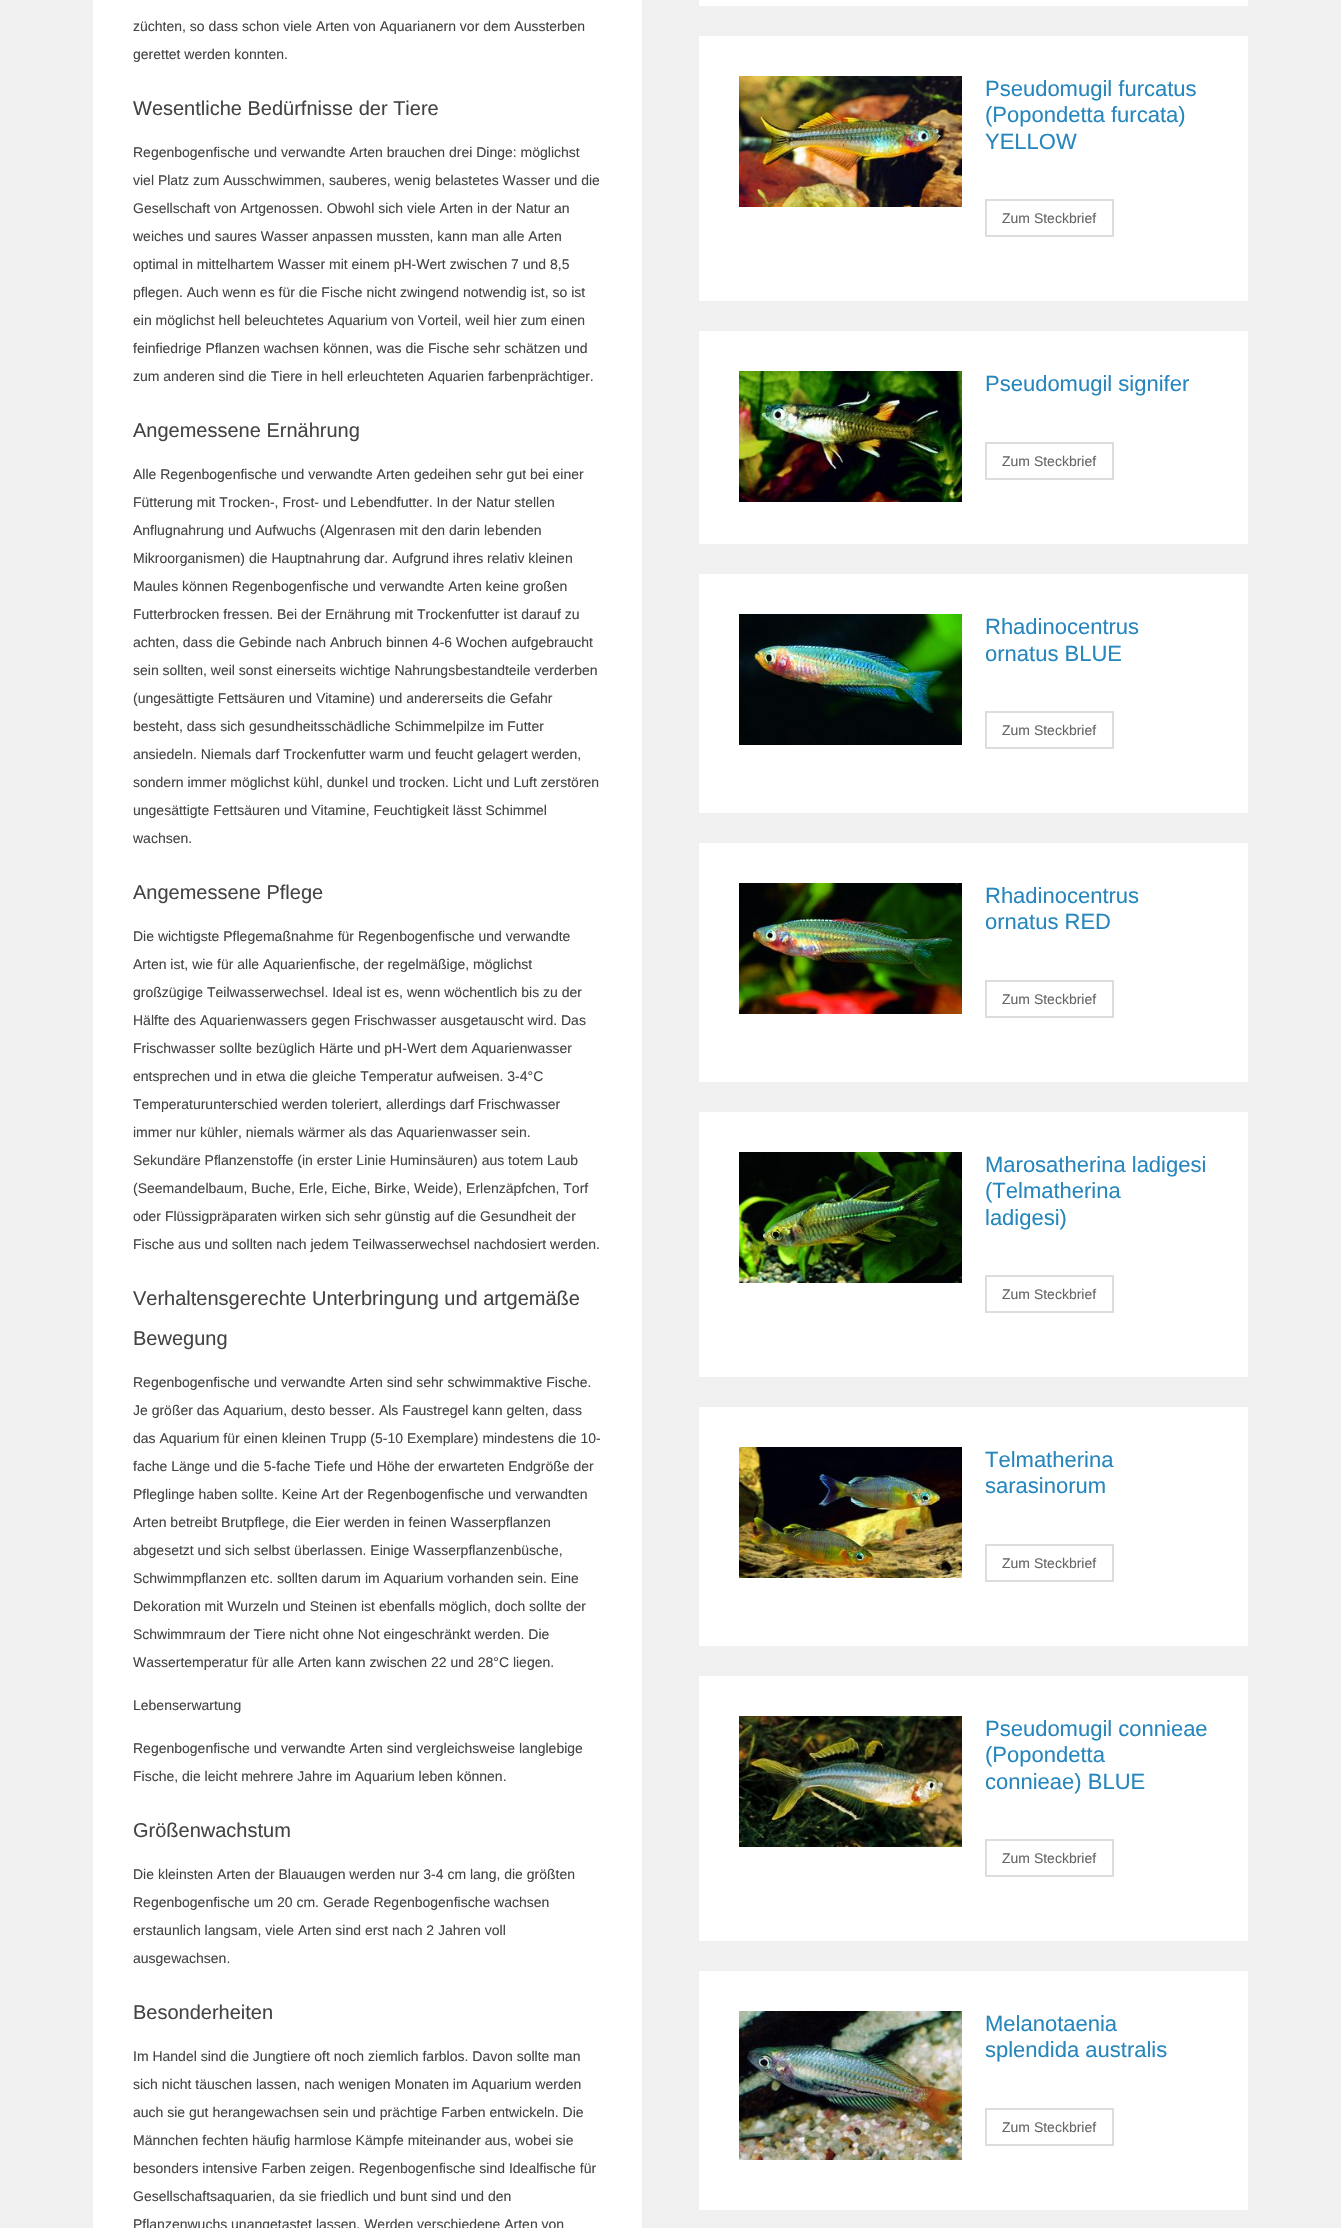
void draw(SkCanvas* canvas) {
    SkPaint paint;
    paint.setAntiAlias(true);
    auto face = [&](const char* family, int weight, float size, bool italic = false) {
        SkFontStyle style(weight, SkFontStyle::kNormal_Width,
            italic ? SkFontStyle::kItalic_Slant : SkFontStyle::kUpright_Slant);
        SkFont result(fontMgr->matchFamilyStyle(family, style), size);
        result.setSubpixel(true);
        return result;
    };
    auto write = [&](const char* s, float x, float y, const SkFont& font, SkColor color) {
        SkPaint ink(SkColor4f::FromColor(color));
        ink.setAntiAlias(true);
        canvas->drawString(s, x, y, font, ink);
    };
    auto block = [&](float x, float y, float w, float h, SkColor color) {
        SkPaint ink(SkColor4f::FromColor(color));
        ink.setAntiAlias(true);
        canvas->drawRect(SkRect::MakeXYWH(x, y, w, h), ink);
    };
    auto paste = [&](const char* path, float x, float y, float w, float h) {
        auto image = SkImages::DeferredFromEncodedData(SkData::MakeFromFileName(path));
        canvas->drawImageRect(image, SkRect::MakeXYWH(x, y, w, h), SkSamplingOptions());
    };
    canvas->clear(SkColorSetRGB(240, 240, 240));
    block(93, 0, 549, 2228, SK_ColorWHITE);
    auto kFont1 = face("Liberation Sans", 400, 14);
    write("züchten, so dass schon viele Arten von Aquarianern vor dem Aussterben", 133, 31, kFont1, SkColorSetRGB(68, 68, 68));
    write("gerettet werden konnten.", 133, 59, kFont1, SkColorSetRGB(68, 68, 68));
    auto kFont2 = face("Liberation Sans", 400, 20);
    write("Wesentliche Bedürfnisse der Tiere", 133, 115, kFont2, SkColorSetRGB(68, 68, 68));
    write("Regenbogenfische und verwandte Arten brauchen drei Dinge: möglichst", 133, 157, kFont1, SkColorSetRGB(68, 68, 68));
    write("viel Platz zum Ausschwimmen, sauberes, wenig belastetes Wasser und die", 133, 185, kFont1, SkColorSetRGB(68, 68, 68));
    write("Gesellschaft von Artgenossen. Obwohl sich viele Arten in der Natur an", 133, 213, kFont1, SkColorSetRGB(68, 68, 68));
    write("weiches und saures Wasser anpassen mussten, kann man alle Arten", 133, 241, kFont1, SkColorSetRGB(68, 68, 68));
    write("optimal in mittelhartem Wasser mit einem pH-Wert zwischen 7 und 8,5", 133, 269, kFont1, SkColorSetRGB(68, 68, 68));
    write("pflegen. Auch wenn es für die Fische nicht zwingend notwendig ist, so ist", 133, 297, kFont1, SkColorSetRGB(68, 68, 68));
    write("ein möglichst hell beleuchtetes Aquarium von Vorteil, weil hier zum einen", 133, 325, kFont1, SkColorSetRGB(68, 68, 68));
    write("feinfiedrige Pflanzen wachsen können, was die Fische sehr schätzen und", 133, 353, kFont1, SkColorSetRGB(68, 68, 68));
    write("zum anderen sind die Tiere in hell erleuchteten Aquarien farbenprächtiger.", 133, 381, kFont1, SkColorSetRGB(68, 68, 68));
    write("Angemessene Ernährung", 133, 437, kFont2, SkColorSetRGB(68, 68, 68));
    write("Alle Regenbogenfische und verwandte Arten gedeihen sehr gut bei einer", 133, 479, kFont1, SkColorSetRGB(68, 68, 68));
    write("Fütterung mit Trocken-, Frost- und Lebendfutter. In der Natur stellen", 133, 507, kFont1, SkColorSetRGB(68, 68, 68));
    write("Anflugnahrung und Aufwuchs (Algenrasen mit den darin lebenden", 133, 535, kFont1, SkColorSetRGB(68, 68, 68));
    write("Mikroorganismen) die Hauptnahrung dar. Aufgrund ihres relativ kleinen", 133, 563, kFont1, SkColorSetRGB(68, 68, 68));
    write("Maules können Regenbogenfische und verwandte Arten keine großen", 133, 591, kFont1, SkColorSetRGB(68, 68, 68));
    write("Futterbrocken fressen. Bei der Ernährung mit Trockenfutter ist darauf zu", 133, 619, kFont1, SkColorSetRGB(68, 68, 68));
    write("achten, dass die Gebinde nach Anbruch binnen 4-6 Wochen aufgebraucht", 133, 647, kFont1, SkColorSetRGB(68, 68, 68));
    write("sein sollten, weil sonst einerseits wichtige Nahrungsbestandteile verderben", 133, 675, kFont1, SkColorSetRGB(68, 68, 68));
    write("(ungesättigte Fettsäuren und Vitamine) und andererseits die Gefahr", 133, 703, kFont1, SkColorSetRGB(68, 68, 68));
    write("besteht, dass sich gesundheitsschädliche Schimmelpilze im Futter", 133, 731, kFont1, SkColorSetRGB(68, 68, 68));
    write("ansiedeln. Niemals darf Trockenfutter warm und feucht gelagert werden,", 133, 759, kFont1, SkColorSetRGB(68, 68, 68));
    write("sondern immer möglichst kühl, dunkel und trocken. Licht und Luft zerstören", 133, 787, kFont1, SkColorSetRGB(68, 68, 68));
    write("ungesättigte Fettsäuren und Vitamine, Feuchtigkeit lässt Schimmel", 133, 815, kFont1, SkColorSetRGB(68, 68, 68));
    write("wachsen.", 133, 843, kFont1, SkColorSetRGB(68, 68, 68));
    write("Angemessene Pflege", 133, 899, kFont2, SkColorSetRGB(68, 68, 68));
    write("Die wichtigste Pflegemaßnahme für Regenbogenfische und verwandte", 133, 941, kFont1, SkColorSetRGB(68, 68, 68));
    write("Arten ist, wie für alle Aquarienfische, der regelmäßige, möglichst", 133, 969, kFont1, SkColorSetRGB(68, 68, 68));
    write("großzügige Teilwasserwechsel. Ideal ist es, wenn wöchentlich bis zu der", 133, 997, kFont1, SkColorSetRGB(68, 68, 68));
    write("Hälfte des Aquarienwassers gegen Frischwasser ausgetauscht wird. Das", 133, 1025, kFont1, SkColorSetRGB(68, 68, 68));
    write("Frischwasser sollte bezüglich Härte und pH-Wert dem Aquarienwasser", 133, 1053, kFont1, SkColorSetRGB(68, 68, 68));
    write("entsprechen und in etwa die gleiche Temperatur aufweisen. 3-4°C", 133, 1081, kFont1, SkColorSetRGB(68, 68, 68));
    write("Temperaturunterschied werden toleriert, allerdings darf Frischwasser", 133, 1109, kFont1, SkColorSetRGB(68, 68, 68));
    write("immer nur kühler, niemals wärmer als das Aquarienwasser sein.", 133, 1137, kFont1, SkColorSetRGB(68, 68, 68));
    write("Sekundäre Pflanzenstoffe (in erster Linie Huminsäuren) aus totem Laub", 133, 1165, kFont1, SkColorSetRGB(68, 68, 68));
    write("(Seemandelbaum, Buche, Erle, Eiche, Birke, Weide), Erlenzäpfchen, Torf", 133, 1193, kFont1, SkColorSetRGB(68, 68, 68));
    write("oder Flüssigpräparaten wirken sich sehr günstig auf die Gesundheit der", 133, 1221, kFont1, SkColorSetRGB(68, 68, 68));
    write("Fische aus und sollten nach jedem Teilwasserwechsel nachdosiert werden.", 133, 1249, kFont1, SkColorSetRGB(68, 68, 68));
    write("Verhaltensgerechte Unterbringung und artgemäße", 133, 1305, kFont2, SkColorSetRGB(68, 68, 68));
    write("Bewegung", 133, 1345, kFont2, SkColorSetRGB(68, 68, 68));
    write("Regenbogenfische und verwandte Arten sind sehr schwimmaktive Fische.", 133, 1387, kFont1, SkColorSetRGB(68, 68, 68));
    write("Je größer das Aquarium, desto besser. Als Faustregel kann gelten, dass", 133, 1415, kFont1, SkColorSetRGB(68, 68, 68));
    write("das Aquarium für einen kleinen Trupp (5-10 Exemplare) mindestens die 10-", 133, 1443, kFont1, SkColorSetRGB(68, 68, 68));
    write("fache Länge und die 5-fache Tiefe und Höhe der erwarteten Endgröße der", 133, 1471, kFont1, SkColorSetRGB(68, 68, 68));
    write("Pfleglinge haben sollte. Keine Art der Regenbogenfische und verwandten", 133, 1499, kFont1, SkColorSetRGB(68, 68, 68));
    write("Arten betreibt Brutpflege, die Eier werden in feinen Wasserpflanzen", 133, 1527, kFont1, SkColorSetRGB(68, 68, 68));
    write("abgesetzt und sich selbst überlassen. Einige Wasserpflanzenbüsche,", 133, 1555, kFont1, SkColorSetRGB(68, 68, 68));
    write("Schwimmpflanzen etc. sollten darum im Aquarium vorhanden sein. Eine", 133, 1583, kFont1, SkColorSetRGB(68, 68, 68));
    write("Dekoration mit Wurzeln und Steinen ist ebenfalls möglich, doch sollte der", 133, 1611, kFont1, SkColorSetRGB(68, 68, 68));
    write("Schwimmraum der Tiere nicht ohne Not eingeschränkt werden. Die", 133, 1639, kFont1, SkColorSetRGB(68, 68, 68));
    write("Wassertemperatur für alle Arten kann zwischen 22 und 28°C liegen.", 133, 1667, kFont1, SkColorSetRGB(68, 68, 68));
    write("Lebenserwartung", 133, 1710, kFont1, SkColorSetRGB(68, 68, 68));
    write("Regenbogenfische und verwandte Arten sind vergleichsweise langlebige", 133, 1753, kFont1, SkColorSetRGB(68, 68, 68));
    write("Fische, die leicht mehrere Jahre im Aquarium leben können.", 133, 1781, kFont1, SkColorSetRGB(68, 68, 68));
    write("Größenwachstum", 133, 1837, kFont2, SkColorSetRGB(68, 68, 68));
    write("Die kleinsten Arten der Blauaugen werden nur 3-4 cm lang, die größten", 133, 1879, kFont1, SkColorSetRGB(68, 68, 68));
    write("Regenbogenfische um 20 cm. Gerade Regenbogenfische wachsen", 133, 1907, kFont1, SkColorSetRGB(68, 68, 68));
    write("erstaunlich langsam, viele Arten sind erst nach 2 Jahren voll", 133, 1935, kFont1, SkColorSetRGB(68, 68, 68));
    write("ausgewachsen.", 133, 1963, kFont1, SkColorSetRGB(68, 68, 68));
    write("Besonderheiten", 133, 2019, kFont2, SkColorSetRGB(68, 68, 68));
    write("Im Handel sind die Jungtiere oft noch ziemlich farblos. Davon sollte man", 133, 2061, kFont1, SkColorSetRGB(68, 68, 68));
    write("sich nicht täuschen lassen, nach wenigen Monaten im Aquarium werden", 133, 2089, kFont1, SkColorSetRGB(68, 68, 68));
    write("auch sie gut herangewachsen sein und prächtige Farben entwickeln. Die", 133, 2117, kFont1, SkColorSetRGB(68, 68, 68));
    write("Männchen fechten häufig harmlose Kämpfe miteinander aus, wobei sie", 133, 2145, kFont1, SkColorSetRGB(68, 68, 68));
    write("besonders intensive Farben zeigen. Regenbogenfische sind Idealfische für", 133, 2173, kFont1, SkColorSetRGB(68, 68, 68));
    write("Gesellschaftsaquarien, da sie friedlich und bunt sind und den", 133, 2201, kFont1, SkColorSetRGB(68, 68, 68));
    write("Pflanzenwuchs unangetastet lassen. Werden verschiedene Arten von", 133, 2229, kFont1, SkColorSetRGB(68, 68, 68));
    block(699, 0, 549, 6, SK_ColorWHITE);
    block(699, 36, 549, 265, SK_ColorWHITE);
    paste("pic1.png", 739, 76, 223, 131);
    auto kFont3 = face("Liberation Sans", 400, 22);
    write("Pseudomugil furcatus", 985, 96, kFont3, SkColorSetRGB(38, 134, 189));
    write("(Popondetta furcata)", 985, 122, kFont3, SkColorSetRGB(38, 134, 189));
    write("YELLOW", 985, 149, kFont3, SkColorSetRGB(38, 134, 189));
    paint.setStyle(SkPaint::kStroke_Style);
    paint.setStrokeWidth(2);
    paint.setColor(SkColorSetRGB(221, 221, 221));
    canvas->drawRect(SkRect::MakeXYWH(986, 200, 127, 36), paint);
    write("Zum Steckbrief", 1002, 223, kFont1, SkColorSetRGB(102, 102, 102));
    block(699, 331, 549, 213, SK_ColorWHITE);
    paste("pic2.png", 739, 371, 223, 131);
    write("Pseudomugil signifer", 985, 391, kFont3, SkColorSetRGB(38, 134, 189));
    canvas->drawRect(SkRect::MakeXYWH(986, 443, 127, 36), paint);
    write("Zum Steckbrief", 1002, 466, kFont1, SkColorSetRGB(102, 102, 102));
    block(699, 574, 549, 239, SK_ColorWHITE);
    paste("pic3.png", 739, 614, 223, 131);
    write("Rhadinocentrus", 985, 634, kFont3, SkColorSetRGB(38, 134, 189));
    write("ornatus BLUE", 985, 661, kFont3, SkColorSetRGB(38, 134, 189));
    canvas->drawRect(SkRect::MakeXYWH(986, 712, 127, 36), paint);
    write("Zum Steckbrief", 1002, 735, kFont1, SkColorSetRGB(102, 102, 102));
    block(699, 843, 549, 239, SK_ColorWHITE);
    paste("pic4.png", 739, 883, 223, 131);
    write("Rhadinocentrus", 985, 903, kFont3, SkColorSetRGB(38, 134, 189));
    write("ornatus RED", 985, 929, kFont3, SkColorSetRGB(38, 134, 189));
    canvas->drawRect(SkRect::MakeXYWH(986, 981, 127, 36), paint);
    write("Zum Steckbrief", 1002, 1004, kFont1, SkColorSetRGB(102, 102, 102));
    block(699, 1112, 549, 265, SK_ColorWHITE);
    paste("pic5.png", 739, 1152, 223, 131);
    write("Marosatherina ladigesi", 985, 1172, kFont3, SkColorSetRGB(38, 134, 189));
    write("(Telmatherina", 985, 1198, kFont3, SkColorSetRGB(38, 134, 189));
    write("ladigesi)", 985, 1225, kFont3, SkColorSetRGB(38, 134, 189));
    canvas->drawRect(SkRect::MakeXYWH(986, 1276, 127, 36), paint);
    write("Zum Steckbrief", 1002, 1299, kFont1, SkColorSetRGB(102, 102, 102));
    block(699, 1407, 549, 239, SK_ColorWHITE);
    paste("pic6.png", 739, 1447, 223, 131);
    write("Telmatherina", 985, 1467, kFont3, SkColorSetRGB(38, 134, 189));
    write("sarasinorum", 985, 1493, kFont3, SkColorSetRGB(38, 134, 189));
    canvas->drawRect(SkRect::MakeXYWH(986, 1545, 127, 36), paint);
    write("Zum Steckbrief", 1002, 1568, kFont1, SkColorSetRGB(102, 102, 102));
    block(699, 1676, 549, 265, SK_ColorWHITE);
    paste("pic7.png", 739, 1716, 223, 131);
    write("Pseudomugil connieae", 985, 1736, kFont3, SkColorSetRGB(38, 134, 189));
    write("(Popondetta", 985, 1762, kFont3, SkColorSetRGB(38, 134, 189));
    write("connieae) BLUE", 985, 1789, kFont3, SkColorSetRGB(38, 134, 189));
    canvas->drawRect(SkRect::MakeXYWH(986, 1840, 127, 36), paint);
    write("Zum Steckbrief", 1002, 1863, kFont1, SkColorSetRGB(102, 102, 102));
    block(699, 1971, 549, 239, SK_ColorWHITE);
    paste("pic8.png", 739, 2011, 223, 149);
    write("Melanotaenia", 985, 2031, kFont3, SkColorSetRGB(38, 134, 189));
    write("splendida australis", 985, 2057, kFont3, SkColorSetRGB(38, 134, 189));
    canvas->drawRect(SkRect::MakeXYWH(986, 2109, 127, 36), paint);
    write("Zum Steckbrief", 1002, 2132, kFont1, SkColorSetRGB(102, 102, 102));
}
